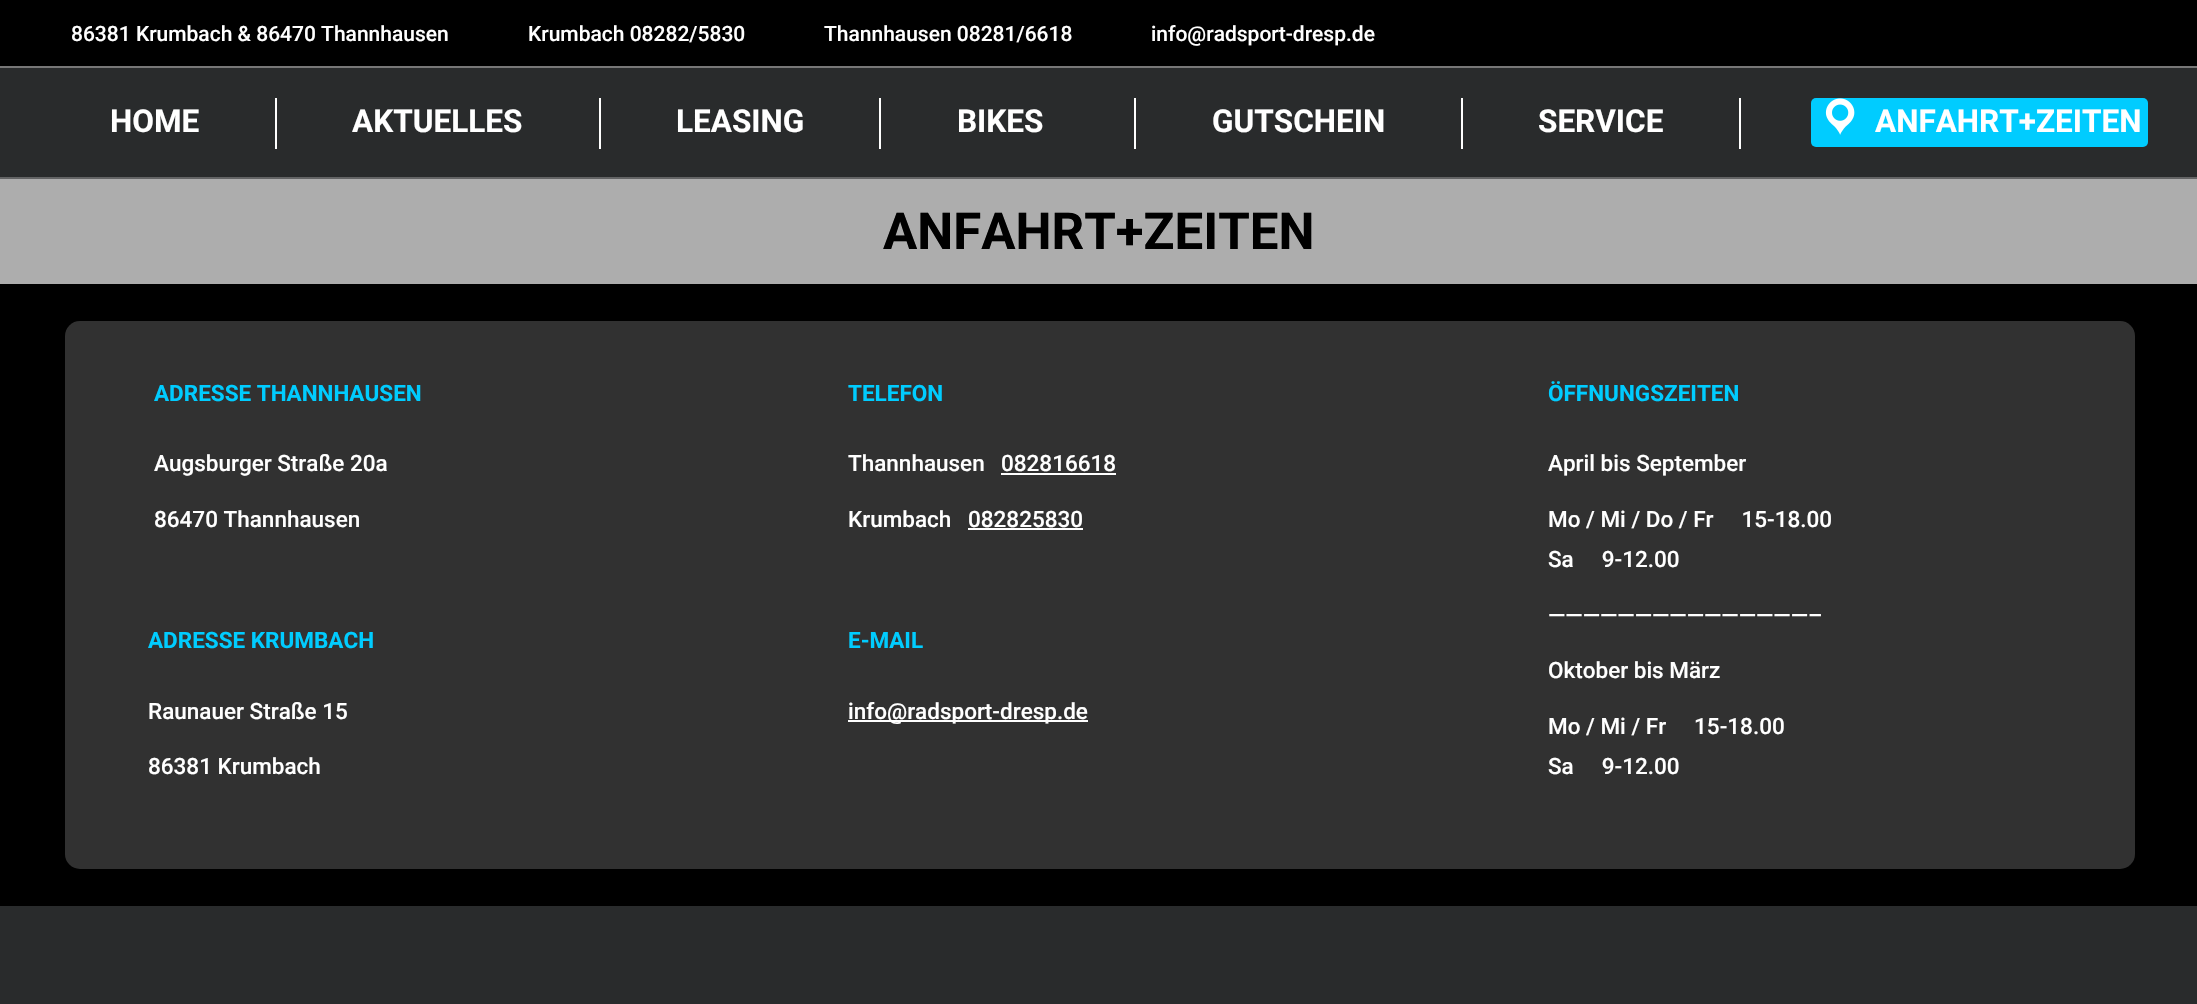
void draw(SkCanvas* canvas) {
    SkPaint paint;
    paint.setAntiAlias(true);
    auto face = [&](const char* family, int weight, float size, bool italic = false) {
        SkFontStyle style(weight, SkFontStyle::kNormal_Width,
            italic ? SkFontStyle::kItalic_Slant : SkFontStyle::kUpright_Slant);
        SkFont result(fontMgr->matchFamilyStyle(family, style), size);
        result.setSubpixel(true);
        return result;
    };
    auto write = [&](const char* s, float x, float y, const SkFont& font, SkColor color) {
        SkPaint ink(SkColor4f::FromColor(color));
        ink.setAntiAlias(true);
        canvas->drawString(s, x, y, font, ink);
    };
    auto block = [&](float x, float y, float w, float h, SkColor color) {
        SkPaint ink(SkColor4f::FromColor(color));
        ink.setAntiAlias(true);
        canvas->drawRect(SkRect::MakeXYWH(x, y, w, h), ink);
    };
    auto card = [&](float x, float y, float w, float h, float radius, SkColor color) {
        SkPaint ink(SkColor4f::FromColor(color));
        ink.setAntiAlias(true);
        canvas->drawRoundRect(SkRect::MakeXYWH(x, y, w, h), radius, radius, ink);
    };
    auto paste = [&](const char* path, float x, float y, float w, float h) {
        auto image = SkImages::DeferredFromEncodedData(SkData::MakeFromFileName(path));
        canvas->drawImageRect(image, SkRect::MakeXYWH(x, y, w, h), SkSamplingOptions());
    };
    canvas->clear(SK_ColorBLACK);
    block(0, 68, 2197, 109, SkColorSetRGB(41, 43, 44));
    block(0, 177, 2197, 2, SkColorSetRGB(99, 100, 101));
    auto kFont1 = face("Roboto", 500, 21);
    write("86381 Krumbach & 86470 Thannhausen", 71, 41, kFont1, SK_ColorWHITE);
    write("Krumbach 08282/5830", 528, 41, kFont1, SK_ColorWHITE);
    write("Thannhausen 08281/6618", 824, 41, kFont1, SK_ColorWHITE);
    write("info@radsport-dresp.de", 1151, 41, kFont1, SK_ColorWHITE);
    block(0, 66, 2197, 2, SkColorSetRGB(119, 119, 119));
    auto kFont2 = face("Roboto", 700, 31.5f);
    write("HOME", 110, 132, kFont2, SK_ColorWHITE);
    block(275, 98, 2, 51, SK_ColorWHITE);
    write("AKTUELLES", 352, 132, kFont2, SK_ColorWHITE);
    block(599, 98, 2, 51, SK_ColorWHITE);
    write("LEASING", 676, 132, kFont2, SK_ColorWHITE);
    block(879, 98, 2, 51, SK_ColorWHITE);
    write("BIKES", 957, 132, kFont2, SK_ColorWHITE);
    block(1134, 98, 2, 51, SK_ColorWHITE);
    write("GUTSCHEIN", 1212, 132, kFont2, SK_ColorWHITE);
    block(1461, 98, 2, 51, SK_ColorWHITE);
    write("SERVICE", 1538, 132, kFont2, SK_ColorWHITE);
    block(1739, 98, 2, 51, SK_ColorWHITE);
    card(1811, 98, 337, 49, 5, SkColorSetRGB(0, 204, 255));
    paste("pic1.png", 1825, 98, 30, 37);
    write("ANFAHRT+ZEITEN", 1875, 132, kFont2, SK_ColorWHITE);
    block(0, 179, 2197, 105, SkColorSetRGB(173, 173, 173));
    auto kFont3 = face("Roboto", 700, 51);
    write("ANFAHRT+ZEITEN", 883, 249, kFont3, SK_ColorBLACK);
    card(65, 321, 2070, 548, 15, SkColorSetRGB(49, 49, 49));
    auto kFont4 = face("Roboto", 700, 22.5f);
    write("ADRESSE THANNHAUSEN", 154, 401, kFont4, SkColorSetRGB(0, 204, 255));
    auto kFont5 = face("Roboto", 500, 22.5f);
    write("Augsburger Straße 20a", 154, 471, kFont5, SK_ColorWHITE);
    write("86470 Thannhausen", 154, 527, kFont5, SK_ColorWHITE);
    write("ADRESSE KRUMBACH", 148, 648, kFont4, SkColorSetRGB(0, 204, 255));
    write("Raunauer Straße 15", 148, 719, kFont5, SK_ColorWHITE);
    write("86381 Krumbach", 148, 774, kFont5, SK_ColorWHITE);
    write("TELEFON", 848, 401, kFont4, SkColorSetRGB(0, 204, 255));
    write("Thannhausen", 848, 471, kFont5, SK_ColorWHITE);
    write("082816618", 1001, 471, kFont5, SK_ColorWHITE);
    block(1001, 473, 115, 2, SK_ColorWHITE);
    write("Krumbach", 848, 527, kFont5, SK_ColorWHITE);
    write("082825830", 968, 527, kFont5, SK_ColorWHITE);
    block(968, 528, 115, 2, SK_ColorWHITE);
    write("E-MAIL", 848, 648, kFont4, SkColorSetRGB(0, 204, 255));
    block(848, 720, 240, 2, SK_ColorWHITE);
    write("info@radsport-dresp.de", 848, 719, kFont5, SK_ColorWHITE);
    write("ÖFFNUNGSZEITEN", 1548, 401, kFont4, SkColorSetRGB(0, 204, 255));
    write("April bis September", 1548, 471, kFont5, SK_ColorWHITE);
    write("Mo / Mi / Do / Fr     15-18.00", 1548, 527, kFont5, SK_ColorWHITE);
    write("Sa     9-12.00", 1548, 567, kFont5, SK_ColorWHITE);
    write("———————————————–", 1548, 623, kFont5, SK_ColorWHITE);
    write("Oktober bis März", 1548, 678, kFont5, SK_ColorWHITE);
    write("Mo / Mi / Fr     15-18.00", 1548, 734, kFont5, SK_ColorWHITE);
    write("Sa     9-12.00", 1548, 774, kFont5, SK_ColorWHITE);
    block(0, 906, 2197, 98, SkColorSetRGB(41, 43, 44));
}
